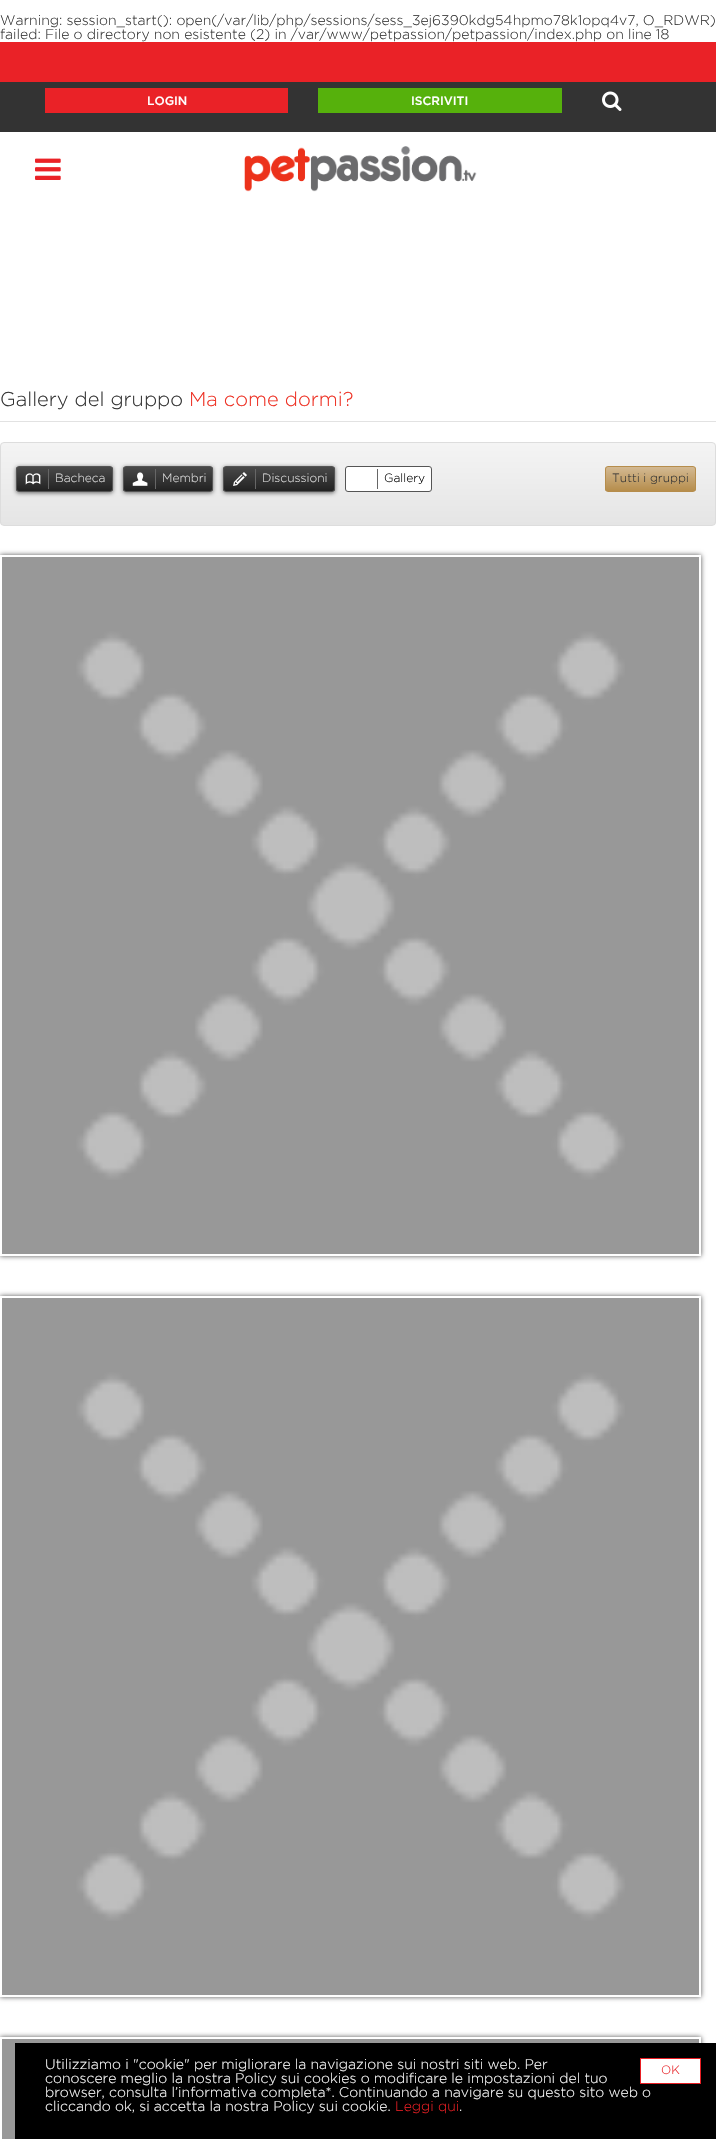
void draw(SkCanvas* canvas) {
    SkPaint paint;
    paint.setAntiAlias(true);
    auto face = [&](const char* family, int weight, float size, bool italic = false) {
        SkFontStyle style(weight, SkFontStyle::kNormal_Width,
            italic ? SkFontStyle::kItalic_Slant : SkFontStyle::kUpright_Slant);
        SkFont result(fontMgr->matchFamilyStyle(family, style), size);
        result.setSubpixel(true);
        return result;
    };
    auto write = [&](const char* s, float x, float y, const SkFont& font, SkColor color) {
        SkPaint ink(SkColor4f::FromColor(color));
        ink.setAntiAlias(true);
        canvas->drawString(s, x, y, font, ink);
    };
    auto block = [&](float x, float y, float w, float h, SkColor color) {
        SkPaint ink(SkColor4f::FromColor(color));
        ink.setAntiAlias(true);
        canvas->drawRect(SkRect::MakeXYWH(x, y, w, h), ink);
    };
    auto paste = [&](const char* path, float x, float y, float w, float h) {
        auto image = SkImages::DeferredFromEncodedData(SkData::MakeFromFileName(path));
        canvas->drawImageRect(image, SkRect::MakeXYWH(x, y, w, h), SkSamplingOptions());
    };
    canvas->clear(SK_ColorWHITE);
    auto kFont1 = face("Gotham", 300, 14);
    write("Warning: session_start(): open(/var/lib/php/sessions/sess_3ej6390kdg54hpmo78k1opq4v7, O_RDWR)", 0, 25, kFont1, SkColorSetRGB(51, 51, 51));
    write("failed: File o directory non esistente (2) in /var/www/petpassion/petpassion/index.php on line 18", 0, 39, kFont1, SkColorSetRGB(51, 51, 51));
    block(0, 42, 716, 40, SkColorSetRGB(234, 34, 39));
    block(0, 82, 716, 50, SkColorSetRGB(51, 51, 51));
    block(45, 88, 243, 25, SkColorSetRGB(234, 34, 39));
    auto kFont2 = face("Gotham", 500, 12);
    write("LOGIN", 147, 105, kFont2, SK_ColorWHITE);
    block(318, 88, 244, 25, SkColorSetRGB(86, 177, 12));
    write("ISCRIVITI", 411, 105, kFont2, SK_ColorWHITE);
    paste("pic1.png", 602, 91, 20, 20);
    paste("pic2.png", 35, 158, 26, 22);
    paste("pic3.png", 244, 146, 233, 46);
    auto kFont3 = face("Gotham", 300, 20);
    write("Gallery del gruppo", 0, 406, kFont3, SkColorSetRGB(51, 51, 51));
    write("Ma come dormi?", 189, 406, kFont3, SkColorSetRGB(238, 49, 36));
    block(0, 421, 716, 1, SkColorSetRGB(226, 226, 226));
    canvas->save();
    canvas->clipPath(SkPathBuilder().moveTo(4, 442).lineTo(712, 442).cubicTo(714, 442, 716, 444, 716, 446).lineTo(716, 522).cubicTo(716, 524, 714, 526, 712, 526).lineTo(4, 526).cubicTo(2, 526, 0, 524, 0, 522).lineTo(0, 446).cubicTo(0, 444, 2, 442, 4, 442).close().detach(), true);
    {
        const SkColor colors[] = {SkColorSetRGB(244, 244, 244), SkColorSetRGB(229, 229, 229)};
        const float stops[] = {0, 1};
        const SkPoint ends[] = {{358, 443}, {358, 525}};
        paint.setShader(SkGradientShader::MakeLinear(ends, colors, stops, 2, SkTileMode::kClamp));
        paint.setAlpha(255);
    }
    canvas->drawRect(SkRect::MakeXYWH(0, 443, 716, 82), paint);
    canvas->restore();
    paint.setStyle(SkPaint::kStroke_Style);
    paint.setStrokeWidth(1);
    paint.setShader(nullptr);
    paint.setColor(SkColorSetRGB(221, 221, 221));
    canvas->drawRoundRect(SkRect::MakeXYWH(0.5f, 442.5f, 715, 83), 3.5f, 3.5f, paint);
    paint.setStyle(SkPaint::kFill_Style);
    paint.setColor(SkColorSetRGB(102, 102, 102));
    paint.setMaskFilter(SkMaskFilter::MakeBlur(kNormal_SkBlurStyle, 2));
    canvas->drawRoundRect(SkRect::MakeXYWH(16, 467, 97, 26), 3, 3, paint);
    paint.setMaskFilter(nullptr);
    canvas->save();
    canvas->clipPath(SkPathBuilder().moveTo(19, 466).lineTo(110, 466).cubicTo(111.5f, 466, 113, 467.5f, 113, 469).lineTo(113, 489).cubicTo(113, 490.5f, 111.5f, 492, 110, 492).lineTo(19, 492).cubicTo(17.5f, 492, 16, 490.5f, 16, 489).lineTo(16, 469).cubicTo(16, 467.5f, 17.5f, 466, 19, 466).close().detach(), true);
    {
        const SkColor colors[] = {SkColorSetRGB(73, 73, 73), SkColorSetRGB(34, 34, 34)};
        const float stops[] = {0, 1};
        const SkPoint ends[] = {{65, 467}, {65, 491}};
        paint.setShader(SkGradientShader::MakeLinear(ends, colors, stops, 2, SkTileMode::kClamp));
        paint.setAlpha(255);
    }
    canvas->drawRect(SkRect::MakeXYWH(16, 467, 97, 24), paint);
    canvas->restore();
    paint.setStyle(SkPaint::kStroke_Style);
    paint.setShader(nullptr);
    paint.setColor(SkColorSetRGB(85, 85, 85));
    canvas->drawRoundRect(SkRect::MakeXYWH(16.5f, 466.5f, 96, 25), 2.5f, 2.5f, paint);
    paste("pic4.png", 25, 473, 16, 12);
    block(48, 469, 1, 20, SkColorSetRGB(102, 102, 102));
    auto kFont4 = face("Gotham", 300, 12);
    write("Bacheca", 55, 482, kFont4, SkColorSetRGB(221, 221, 221));
    paint.setStyle(SkPaint::kFill_Style);
    paint.setColor(SkColorSetRGB(102, 102, 102));
    paint.setMaskFilter(SkMaskFilter::MakeBlur(kNormal_SkBlurStyle, 2));
    canvas->drawRoundRect(SkRect::MakeXYWH(123, 467, 90, 26), 3, 3, paint);
    paint.setMaskFilter(nullptr);
    canvas->save();
    canvas->clipPath(SkPathBuilder().moveTo(126, 466).lineTo(210, 466).cubicTo(211.5f, 466, 213, 467.5f, 213, 469).lineTo(213, 489).cubicTo(213, 490.5f, 211.5f, 492, 210, 492).lineTo(126, 492).cubicTo(124.5f, 492, 123, 490.5f, 123, 489).lineTo(123, 469).cubicTo(123, 467.5f, 124.5f, 466, 126, 466).close().detach(), true);
    {
        const SkColor colors[] = {SkColorSetRGB(73, 73, 73), SkColorSetRGB(34, 34, 34)};
        const float stops[] = {0, 1};
        const SkPoint ends[] = {{168, 467}, {168, 491}};
        paint.setShader(SkGradientShader::MakeLinear(ends, colors, stops, 2, SkTileMode::kClamp));
        paint.setAlpha(255);
    }
    canvas->drawRect(SkRect::MakeXYWH(123, 467, 90, 24), paint);
    canvas->restore();
    paint.setStyle(SkPaint::kStroke_Style);
    paint.setShader(nullptr);
    paint.setColor(SkColorSetRGB(85, 85, 85));
    canvas->drawRoundRect(SkRect::MakeXYWH(123.5f, 466.5f, 89, 25), 2.5f, 2.5f, paint);
    paste("pic5.png", 132, 472, 16, 14);
    block(155, 469, 1, 20, SkColorSetRGB(102, 102, 102));
    write("Membri", 162, 482, kFont4, SkColorSetRGB(221, 221, 221));
    paint.setStyle(SkPaint::kFill_Style);
    paint.setColor(SkColorSetRGB(102, 102, 102));
    paint.setMaskFilter(SkMaskFilter::MakeBlur(kNormal_SkBlurStyle, 2));
    canvas->drawRoundRect(SkRect::MakeXYWH(223, 467, 112, 26), 3, 3, paint);
    paint.setMaskFilter(nullptr);
    canvas->save();
    canvas->clipPath(SkPathBuilder().moveTo(226, 466).lineTo(332, 466).cubicTo(333.5f, 466, 335, 467.5f, 335, 469).lineTo(335, 489).cubicTo(335, 490.5f, 333.5f, 492, 332, 492).lineTo(226, 492).cubicTo(224.5f, 492, 223, 490.5f, 223, 489).lineTo(223, 469).cubicTo(223, 467.5f, 224.5f, 466, 226, 466).close().detach(), true);
    {
        const SkColor colors[] = {SkColorSetRGB(73, 73, 73), SkColorSetRGB(34, 34, 34)};
        const float stops[] = {0, 1};
        const SkPoint ends[] = {{279, 467}, {279, 491}};
        paint.setShader(SkGradientShader::MakeLinear(ends, colors, stops, 2, SkTileMode::kClamp));
        paint.setAlpha(255);
    }
    canvas->drawRect(SkRect::MakeXYWH(223, 467, 112, 24), paint);
    canvas->restore();
    paint.setStyle(SkPaint::kStroke_Style);
    paint.setShader(nullptr);
    paint.setColor(SkColorSetRGB(85, 85, 85));
    canvas->drawRoundRect(SkRect::MakeXYWH(223.5f, 466.5f, 111, 25), 2.5f, 2.5f, paint);
    paste("pic6.png", 233, 472, 14, 14);
    block(255, 469, 1, 20, SkColorSetRGB(102, 102, 102));
    write("Discussioni", 262, 482, kFont4, SkColorSetRGB(221, 221, 221));
    paint.setStyle(SkPaint::kFill_Style);
    paint.setColor(SK_ColorWHITE);
    canvas->drawRoundRect(SkRect::MakeXYWH(345.5f, 466.5f, 86, 25), 2.5f, 2.5f, paint);
    paint.setStyle(SkPaint::kStroke_Style);
    paint.setColor(SkColorSetRGB(85, 85, 85));
    canvas->drawRoundRect(SkRect::MakeXYWH(345.5f, 466.5f, 86, 25), 2.5f, 2.5f, paint);
    block(377, 469, 1, 20, SkColorSetRGB(102, 102, 102));
    write("Gallery", 384, 482, kFont4, SK_ColorBLACK);
    canvas->save();
    canvas->clipPath(SkPathBuilder().moveTo(608, 466).lineTo(693, 466).cubicTo(694.5f, 466, 696, 467.5f, 696, 469).lineTo(696, 489).cubicTo(696, 490.5f, 694.5f, 492, 693, 492).lineTo(608, 492).cubicTo(606.5f, 492, 605, 490.5f, 605, 489).lineTo(605, 469).cubicTo(605, 467.5f, 606.5f, 466, 608, 466).close().detach(), true);
    paint.setStyle(SkPaint::kFill_Style);
    {
        const SkColor colors[] = {SkColorSetRGB(211, 185, 146), SkColorSetRGB(182, 141, 76)};
        const float stops[] = {0, 1};
        const SkPoint ends[] = {{651, 467}, {651, 491}};
        paint.setShader(SkGradientShader::MakeLinear(ends, colors, stops, 2, SkTileMode::kClamp));
        paint.setAlpha(255);
    }
    canvas->drawRect(SkRect::MakeXYWH(605, 467, 91, 24), paint);
    canvas->restore();
    paint.setStyle(SkPaint::kStroke_Style);
    paint.setShader(nullptr);
    paint.setColor(SkColorSetRGB(182, 141, 76));
    canvas->drawRoundRect(SkRect::MakeXYWH(605.5f, 466.5f, 90, 25), 2.5f, 2.5f, paint);
    write("Tutti i gruppi", 612, 482, kFont4, SkColorSetRGB(51, 51, 51));
    canvas->save();
    canvas->clipPath(SkPathBuilder(SkPathFillType::kEvenOdd).moveTo(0, 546).lineTo(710, 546).lineTo(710, 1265).lineTo(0, 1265).close().moveTo(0, 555).lineTo(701, 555).lineTo(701, 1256).lineTo(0, 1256).close().detach(), true);
    paint.setStyle(SkPaint::kFill_Style);
    paint.setColor(SkColorSetRGB(85, 85, 85));
    paint.setMaskFilter(SkMaskFilter::MakeBlur(kNormal_SkBlurStyle, 2.5f));
    canvas->drawRect(SkRect::MakeXYWH(0, 555, 701, 701), paint);
    paint.setMaskFilter(nullptr);
    canvas->restore();
    paste("pic7.png", 2, 557, 697, 697);
    canvas->save();
    canvas->clipPath(SkPathBuilder(SkPathFillType::kEvenOdd).moveTo(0, 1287).lineTo(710, 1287).lineTo(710, 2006).lineTo(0, 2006).close().moveTo(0, 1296).lineTo(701, 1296).lineTo(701, 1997).lineTo(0, 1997).close().detach(), true);
    paint.setMaskFilter(SkMaskFilter::MakeBlur(kNormal_SkBlurStyle, 2.5f));
    canvas->drawRect(SkRect::MakeXYWH(0, 1296, 701, 701), paint);
    paint.setMaskFilter(nullptr);
    canvas->restore();
    paste("pic7.png", 2, 1298, 697, 697);
    canvas->save();
    canvas->clipPath(SkPathBuilder(SkPathFillType::kEvenOdd).moveTo(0, 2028).lineTo(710, 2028).lineTo(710, 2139).lineTo(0, 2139).close().moveTo(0, 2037).lineTo(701, 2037).lineTo(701, 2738).lineTo(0, 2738).close().detach(), true);
    paint.setMaskFilter(SkMaskFilter::MakeBlur(kNormal_SkBlurStyle, 2.5f));
    canvas->drawRect(SkRect::MakeXYWH(0, 2037, 701, 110), paint);
    paint.setMaskFilter(nullptr);
    canvas->restore();
    paste("pic8.png", 2, 2039, 697, 100);
    block(15, 2043, 701, 96, SK_ColorBLACK);
    write("Utilizziamo i \"cookie\" per migliorare la navigazione sui nostri siti web. Per", 45, 2069, kFont1, SK_ColorWHITE);
    write("conoscere meglio la nostra Policy sui cookies o modificare le impostazioni del tuo", 45, 2083, kFont1, SK_ColorWHITE);
    write("browser, consulta l’informativa completa*. Continuando a navigare su questo sito web o", 45, 2097, kFont1, SK_ColorWHITE);
    write("cliccando ok, si accetta la nostra Policy sui cookie.", 45, 2111, kFont1, SK_ColorWHITE);
    write("Leggi qui", 395, 2111, kFont1, SkColorSetRGB(231, 30, 35));
    write(".", 459, 2111, kFont1, SK_ColorWHITE);
    paint.setColor(SK_ColorWHITE);
    canvas->drawRect(SkRect::MakeXYWH(640.5f, 2058.5f, 60, 25), paint);
    paint.setStyle(SkPaint::kStroke_Style);
    paint.setColor(SkColorSetRGB(231, 30, 35));
    canvas->drawRect(SkRect::MakeXYWH(640.5f, 2058.5f, 60, 25), paint);
    write("OK", 661, 2074, kFont4, SkColorSetRGB(231, 30, 35));
}
